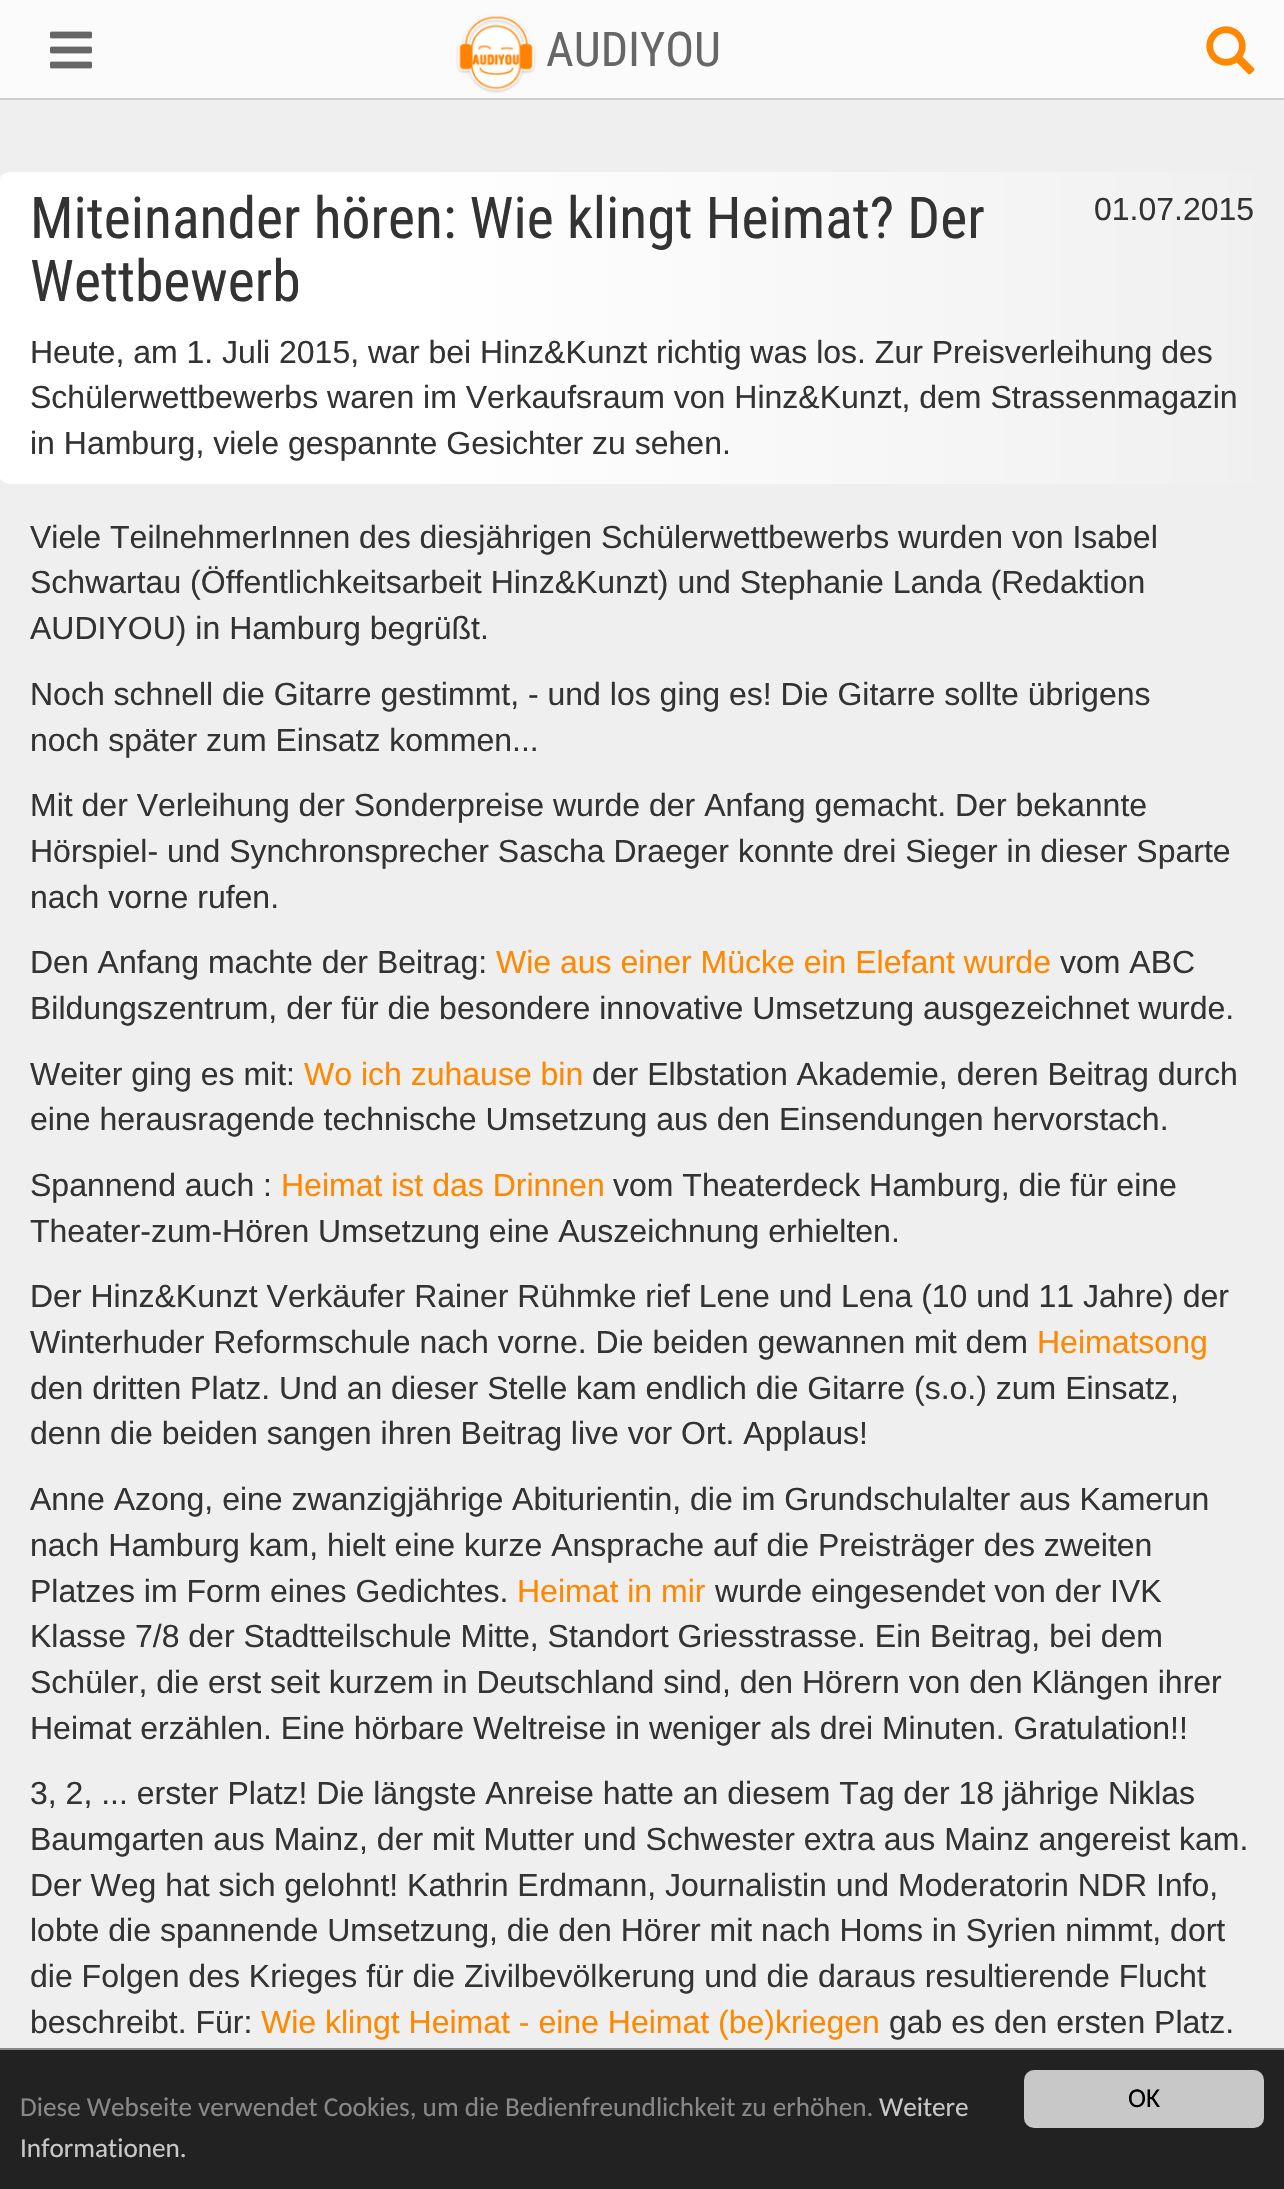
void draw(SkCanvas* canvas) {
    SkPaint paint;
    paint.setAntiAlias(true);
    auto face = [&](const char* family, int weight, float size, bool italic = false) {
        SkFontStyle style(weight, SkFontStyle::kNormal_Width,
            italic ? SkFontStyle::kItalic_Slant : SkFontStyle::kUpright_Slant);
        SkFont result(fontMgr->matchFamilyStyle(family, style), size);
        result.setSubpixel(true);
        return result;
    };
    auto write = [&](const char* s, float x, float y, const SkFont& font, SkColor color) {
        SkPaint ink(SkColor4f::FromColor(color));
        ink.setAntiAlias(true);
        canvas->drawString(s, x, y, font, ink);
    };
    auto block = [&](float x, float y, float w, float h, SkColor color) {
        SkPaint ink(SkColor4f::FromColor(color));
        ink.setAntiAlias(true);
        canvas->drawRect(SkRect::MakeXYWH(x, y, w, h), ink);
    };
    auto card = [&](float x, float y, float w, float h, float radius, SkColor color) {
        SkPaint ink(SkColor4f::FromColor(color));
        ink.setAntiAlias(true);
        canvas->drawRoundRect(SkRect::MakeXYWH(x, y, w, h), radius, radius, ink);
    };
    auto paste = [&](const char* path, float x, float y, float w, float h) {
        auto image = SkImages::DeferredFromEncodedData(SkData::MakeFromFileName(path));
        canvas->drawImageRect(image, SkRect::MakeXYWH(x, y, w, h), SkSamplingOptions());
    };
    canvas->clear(SkColorSetRGB(239, 239, 239));
    block(0, 0, 1284, 98, SkColorSetRGB(251, 251, 251));
    block(0, 98, 1284, 2, SkColorSetRGB(206, 206, 206));
    paste("pic1.png", 50, 31, 42, 38);
    paste("pic2.png", 456, 14, 80, 79);
    auto kFont1 = face("Roboto Condensed", 400, 48);
    write("AUDIYOU", 546, 66, kFont1, SkColorSetRGB(102, 102, 102));
    paste("pic3.png", 1206, 26, 49, 49);
    {
        const SkColor colors[] = {SK_ColorWHITE, SK_ColorWHITE, SkColorSetRGB(240, 240, 240)};
        const float stops[] = {0.32f, 0.33f, 1};
        const SkPoint ends[] = {{-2, 328}, {1254, 328}};
        paint.setShader(SkGradientShader::MakeLinear(ends, colors, stops, 3, SkTileMode::kClamp));
        paint.setAlpha(255);
    }
    canvas->drawPath(SkPathBuilder().moveTo(10, 172).lineTo(1254, 172).lineTo(1254, 484).lineTo(10, 484).cubicTo(3.5f, 484, -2, 478.5f, -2, 472).lineTo(-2, 184).cubicTo(-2, 177.5f, 3.5f, 172, 10, 172).close().detach(), paint);
    auto kFont2 = face("Roboto Condensed", 400, 57.6f);
    write("Miteinander hören: Wie klingt Heimat? Der", 30, 238, kFont2, SkColorSetRGB(51, 51, 51));
    write("Wettbewerb", 30, 301, kFont2, SkColorSetRGB(51, 51, 51));
    auto kFont3 = face("Liberation Sans", 400, 32);
    write("01.07.2015", 1094, 220, kFont3, SkColorSetRGB(51, 51, 51));
    write("Heute, am 1. Juli 2015, war bei Hinz&Kunzt richtig was los. Zur Preisverleihung des", 30, 363, kFont3, SkColorSetRGB(51, 51, 51));
    write("Schülerwettbewerbs waren im Verkaufsraum von Hinz&Kunzt, dem Strassenmagazin", 30, 408, kFont3, SkColorSetRGB(51, 51, 51));
    write("in Hamburg, viele gespannte Gesichter zu sehen.", 30, 454, kFont3, SkColorSetRGB(51, 51, 51));
    write("Viele TeilnehmerInnen des diesjährigen Schülerwettbewerbs wurden von Isabel", 30, 548, kFont3, SkColorSetRGB(51, 51, 51));
    write("Schwartau (Öffentlichkeitsarbeit Hinz&Kunzt) und Stephanie Landa (Redaktion", 30, 593, kFont3, SkColorSetRGB(51, 51, 51));
    write("AUDIYOU) in Hamburg begrüßt.", 30, 639, kFont3, SkColorSetRGB(51, 51, 51));
    write("Noch schnell die Gitarre gestimmt, - und los ging es! Die Gitarre sollte übrigens", 30, 705, kFont3, SkColorSetRGB(51, 51, 51));
    write("noch später zum Einsatz kommen...", 30, 751, kFont3, SkColorSetRGB(51, 51, 51));
    write("Mit der Verleihung der Sonderpreise wurde der Anfang gemacht. Der bekannte", 30, 816, kFont3, SkColorSetRGB(51, 51, 51));
    write("Hörspiel- und Synchronsprecher Sascha Draeger konnte drei Sieger in dieser Sparte", 30, 862, kFont3, SkColorSetRGB(51, 51, 51));
    write("nach vorne rufen.", 30, 908, kFont3, SkColorSetRGB(51, 51, 51));
    write("Den Anfang machte der Beitrag:", 30, 973, kFont3, SkColorSetRGB(51, 51, 51));
    write("Wie aus einer Mücke ein Elefant wurde", 496, 973, kFont3, SkColorSetRGB(255, 136, 0));
    write("vom ABC", 1060, 973, kFont3, SkColorSetRGB(51, 51, 51));
    write("Bildungszentrum, der für die besondere innovative Umsetzung ausgezeichnet wurde.", 30, 1019, kFont3, SkColorSetRGB(51, 51, 51));
    write("Weiter ging es mit:", 30, 1085, kFont3, SkColorSetRGB(51, 51, 51));
    write("Wo ich zuhause bin", 304, 1085, kFont3, SkColorSetRGB(255, 136, 0));
    write("der Elbstation Akademie, deren Beitrag durch", 592, 1085, kFont3, SkColorSetRGB(51, 51, 51));
    write("eine herausragende technische Umsetzung aus den Einsendungen hervorstach.", 30, 1130, kFont3, SkColorSetRGB(51, 51, 51));
    write("Spannend auch :", 30, 1196, kFont3, SkColorSetRGB(51, 51, 51));
    write("Heimat ist das Drinnen", 281, 1196, kFont3, SkColorSetRGB(255, 136, 0));
    write("vom Theaterdeck Hamburg, die für eine", 613, 1196, kFont3, SkColorSetRGB(51, 51, 51));
    write("Theater-zum-Hören Umsetzung eine Auszeichnung erhielten.", 30, 1242, kFont3, SkColorSetRGB(51, 51, 51));
    write("Der Hinz&Kunzt Verkäufer Rainer Rühmke rief Lene und Lena (10 und 11 Jahre) der", 30, 1307, kFont3, SkColorSetRGB(51, 51, 51));
    write("Winterhuder Reformschule nach vorne. Die beiden gewannen mit dem", 30, 1353, kFont3, SkColorSetRGB(51, 51, 51));
    write("Heimatsong", 1037, 1353, kFont3, SkColorSetRGB(255, 136, 0));
    write("den dritten Platz. Und an dieser Stelle kam endlich die Gitarre (s.o.) zum Einsatz,", 30, 1399, kFont3, SkColorSetRGB(51, 51, 51));
    write("denn die beiden sangen ihren Beitrag live vor Ort. Applaus!", 30, 1444, kFont3, SkColorSetRGB(51, 51, 51));
    write("Anne Azong, eine zwanzigjährige Abiturientin, die im Grundschulalter aus Kamerun", 30, 1510, kFont3, SkColorSetRGB(51, 51, 51));
    write("nach Hamburg kam, hielt eine kurze Ansprache auf die Preisträger des zweiten", 30, 1556, kFont3, SkColorSetRGB(51, 51, 51));
    write("Platzes im Form eines Gedichtes.", 30, 1602, kFont3, SkColorSetRGB(51, 51, 51));
    write("Heimat in mir", 517, 1602, kFont3, SkColorSetRGB(255, 136, 0));
    write("wurde eingesendet von der IVK", 715, 1602, kFont3, SkColorSetRGB(51, 51, 51));
    write("Klasse 7/8 der Stadtteilschule Mitte, Standort Griesstrasse. Ein Beitrag, bei dem", 30, 1647, kFont3, SkColorSetRGB(51, 51, 51));
    write("Schüler, die erst seit kurzem in Deutschland sind, den Hörern von den Klängen ihrer", 30, 1693, kFont3, SkColorSetRGB(51, 51, 51));
    write("Heimat erzählen. Eine hörbare Weltreise in weniger als drei Minuten. Gratulation!!", 30, 1739, kFont3, SkColorSetRGB(51, 51, 51));
    write("3, 2, ... erster Platz! Die längste Anreise hatte an diesem Tag der 18 jährige Niklas", 30, 1804, kFont3, SkColorSetRGB(51, 51, 51));
    write("Baumgarten aus Mainz, der mit Mutter und Schwester extra aus Mainz angereist kam.", 30, 1850, kFont3, SkColorSetRGB(51, 51, 51));
    write("Der Weg hat sich gelohnt! Kathrin Erdmann, Journalistin und Moderatorin NDR Info,", 30, 1896, kFont3, SkColorSetRGB(51, 51, 51));
    write("lobte die spannende Umsetzung, die den Hörer mit nach Homs in Syrien nimmt, dort", 30, 1941, kFont3, SkColorSetRGB(51, 51, 51));
    write("die Folgen des Krieges für die Zivilbevölkerung und die daraus resultierende Flucht", 30, 1987, kFont3, SkColorSetRGB(51, 51, 51));
    write("beschreibt. Für:", 30, 2033, kFont3, SkColorSetRGB(51, 51, 51));
    write("Wie klingt Heimat - eine Heimat (be)kriegen", 261, 2033, kFont3, SkColorSetRGB(255, 136, 0));
    write("gab es den ersten Platz.", 889, 2033, kFont3, SkColorSetRGB(51, 51, 51));
    block(0, 2050, 1284, 139, SkColorSetRGB(34, 34, 34));
    block(0, 2048, 1284, 2, SkColorSetRGB(136, 136, 136));
    auto kFont4 = face("Carlito", 400, 27.2f);
    write("Diese Webseite verwendet Cookies, um die Bedienfreundlichkeit zu erhöhen.", 20, 2116, kFont4, SkColorSetRGB(136, 136, 136));
    write("Weitere", 879, 2116, kFont4, SkColorSetRGB(200, 200, 200));
    write("Informationen.", 20, 2157, kFont4, SkColorSetRGB(200, 200, 200));
    card(1024, 2070, 240, 58, 10, SkColorSetRGB(200, 200, 200));
    write("OK", 1128, 2107, kFont4, SK_ColorBLACK);
}
